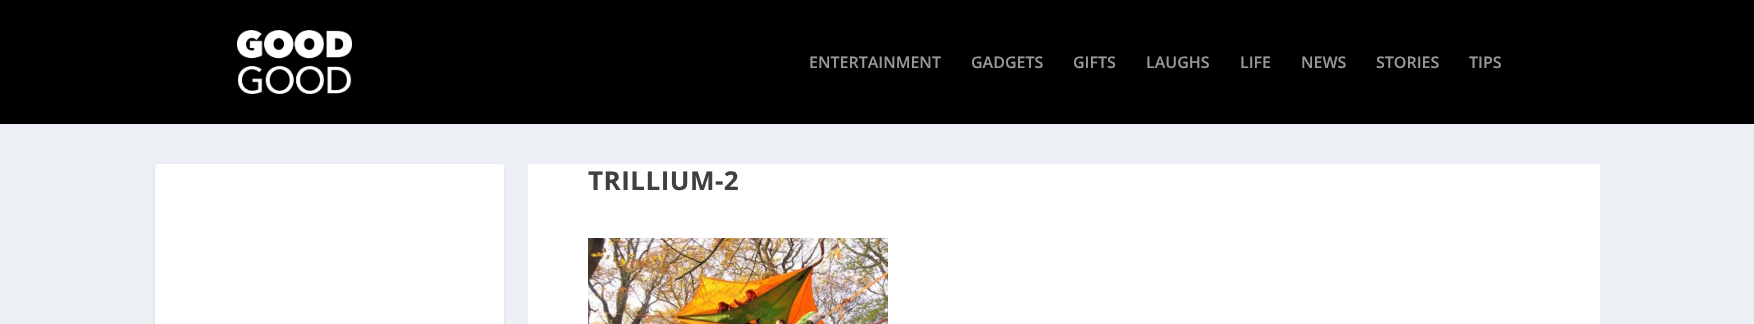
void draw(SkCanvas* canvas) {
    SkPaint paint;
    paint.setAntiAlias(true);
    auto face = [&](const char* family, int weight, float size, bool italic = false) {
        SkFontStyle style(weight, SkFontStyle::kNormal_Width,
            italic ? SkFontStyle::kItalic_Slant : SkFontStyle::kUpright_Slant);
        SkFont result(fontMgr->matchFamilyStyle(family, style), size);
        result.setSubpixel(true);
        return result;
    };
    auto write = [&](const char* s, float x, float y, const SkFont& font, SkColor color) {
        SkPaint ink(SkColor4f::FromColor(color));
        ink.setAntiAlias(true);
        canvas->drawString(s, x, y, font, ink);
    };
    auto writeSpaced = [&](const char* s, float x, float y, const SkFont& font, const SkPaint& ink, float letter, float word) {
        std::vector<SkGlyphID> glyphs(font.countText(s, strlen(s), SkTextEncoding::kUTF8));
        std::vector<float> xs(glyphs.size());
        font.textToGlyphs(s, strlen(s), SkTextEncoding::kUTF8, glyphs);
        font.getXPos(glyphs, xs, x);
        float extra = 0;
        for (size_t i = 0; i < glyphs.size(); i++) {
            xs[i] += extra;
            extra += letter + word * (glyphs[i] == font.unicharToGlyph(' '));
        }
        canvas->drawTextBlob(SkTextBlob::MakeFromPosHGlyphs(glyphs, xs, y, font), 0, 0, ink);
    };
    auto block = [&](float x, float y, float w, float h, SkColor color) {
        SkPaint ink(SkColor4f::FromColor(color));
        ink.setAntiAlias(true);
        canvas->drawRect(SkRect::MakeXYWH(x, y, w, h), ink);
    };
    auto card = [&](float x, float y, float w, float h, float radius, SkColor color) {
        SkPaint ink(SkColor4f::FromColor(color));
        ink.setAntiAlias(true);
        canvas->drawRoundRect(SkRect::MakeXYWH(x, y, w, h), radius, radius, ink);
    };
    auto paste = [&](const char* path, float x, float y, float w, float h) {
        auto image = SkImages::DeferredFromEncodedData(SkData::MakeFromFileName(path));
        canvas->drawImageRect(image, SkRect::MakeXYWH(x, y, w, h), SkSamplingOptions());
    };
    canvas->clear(SkColorSetRGB(236, 240, 245));
    block(0, 0, 1754, 124, SK_ColorBLACK);
    paste("pic1.png", 237, 30, 115, 64);
    auto kFont1 = face("Open Sans", 600, 16);
    write("ENTERTAINMENT", 809, 68, kFont1, SkColorSetRGB(153, 153, 153));
    write("GADGETS", 971, 68, kFont1, SkColorSetRGB(153, 153, 153));
    write("GIFTS", 1073, 68, kFont1, SkColorSetRGB(153, 153, 153));
    write("LAUGHS", 1146, 68, kFont1, SkColorSetRGB(153, 153, 153));
    write("LIFE", 1240, 68, kFont1, SkColorSetRGB(153, 153, 153));
    write("NEWS", 1301, 68, kFont1, SkColorSetRGB(153, 153, 153));
    write("STORIES", 1376, 68, kFont1, SkColorSetRGB(153, 153, 153));
    write("TIPS", 1469, 68, kFont1, SkColorSetRGB(153, 153, 153));
    paint.setColor(SkColorSetARGB(26, 0, 0, 0));
    paint.setMaskFilter(SkMaskFilter::MakeBlur(kNormal_SkBlurStyle, 1.5f));
    canvas->drawRoundRect(SkRect::MakeXYWH(155, 165, 349, 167), 3, 3, paint);
    paint.setMaskFilter(nullptr);
    card(155, 164, 349, 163, 3, SK_ColorWHITE);
    card(528, 164, 1072, 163, 3, SK_ColorWHITE);
    auto kFont2 = face("Open Sans", 700, 26);
    paint.setColor(SkColorSetRGB(64, 64, 64));
    writeSpaced("TRILLIUM-2", 588, 190, kFont2, paint, 0.5f, 0);
    paste("pic2.png", 588, 238, 300, 86);
}
